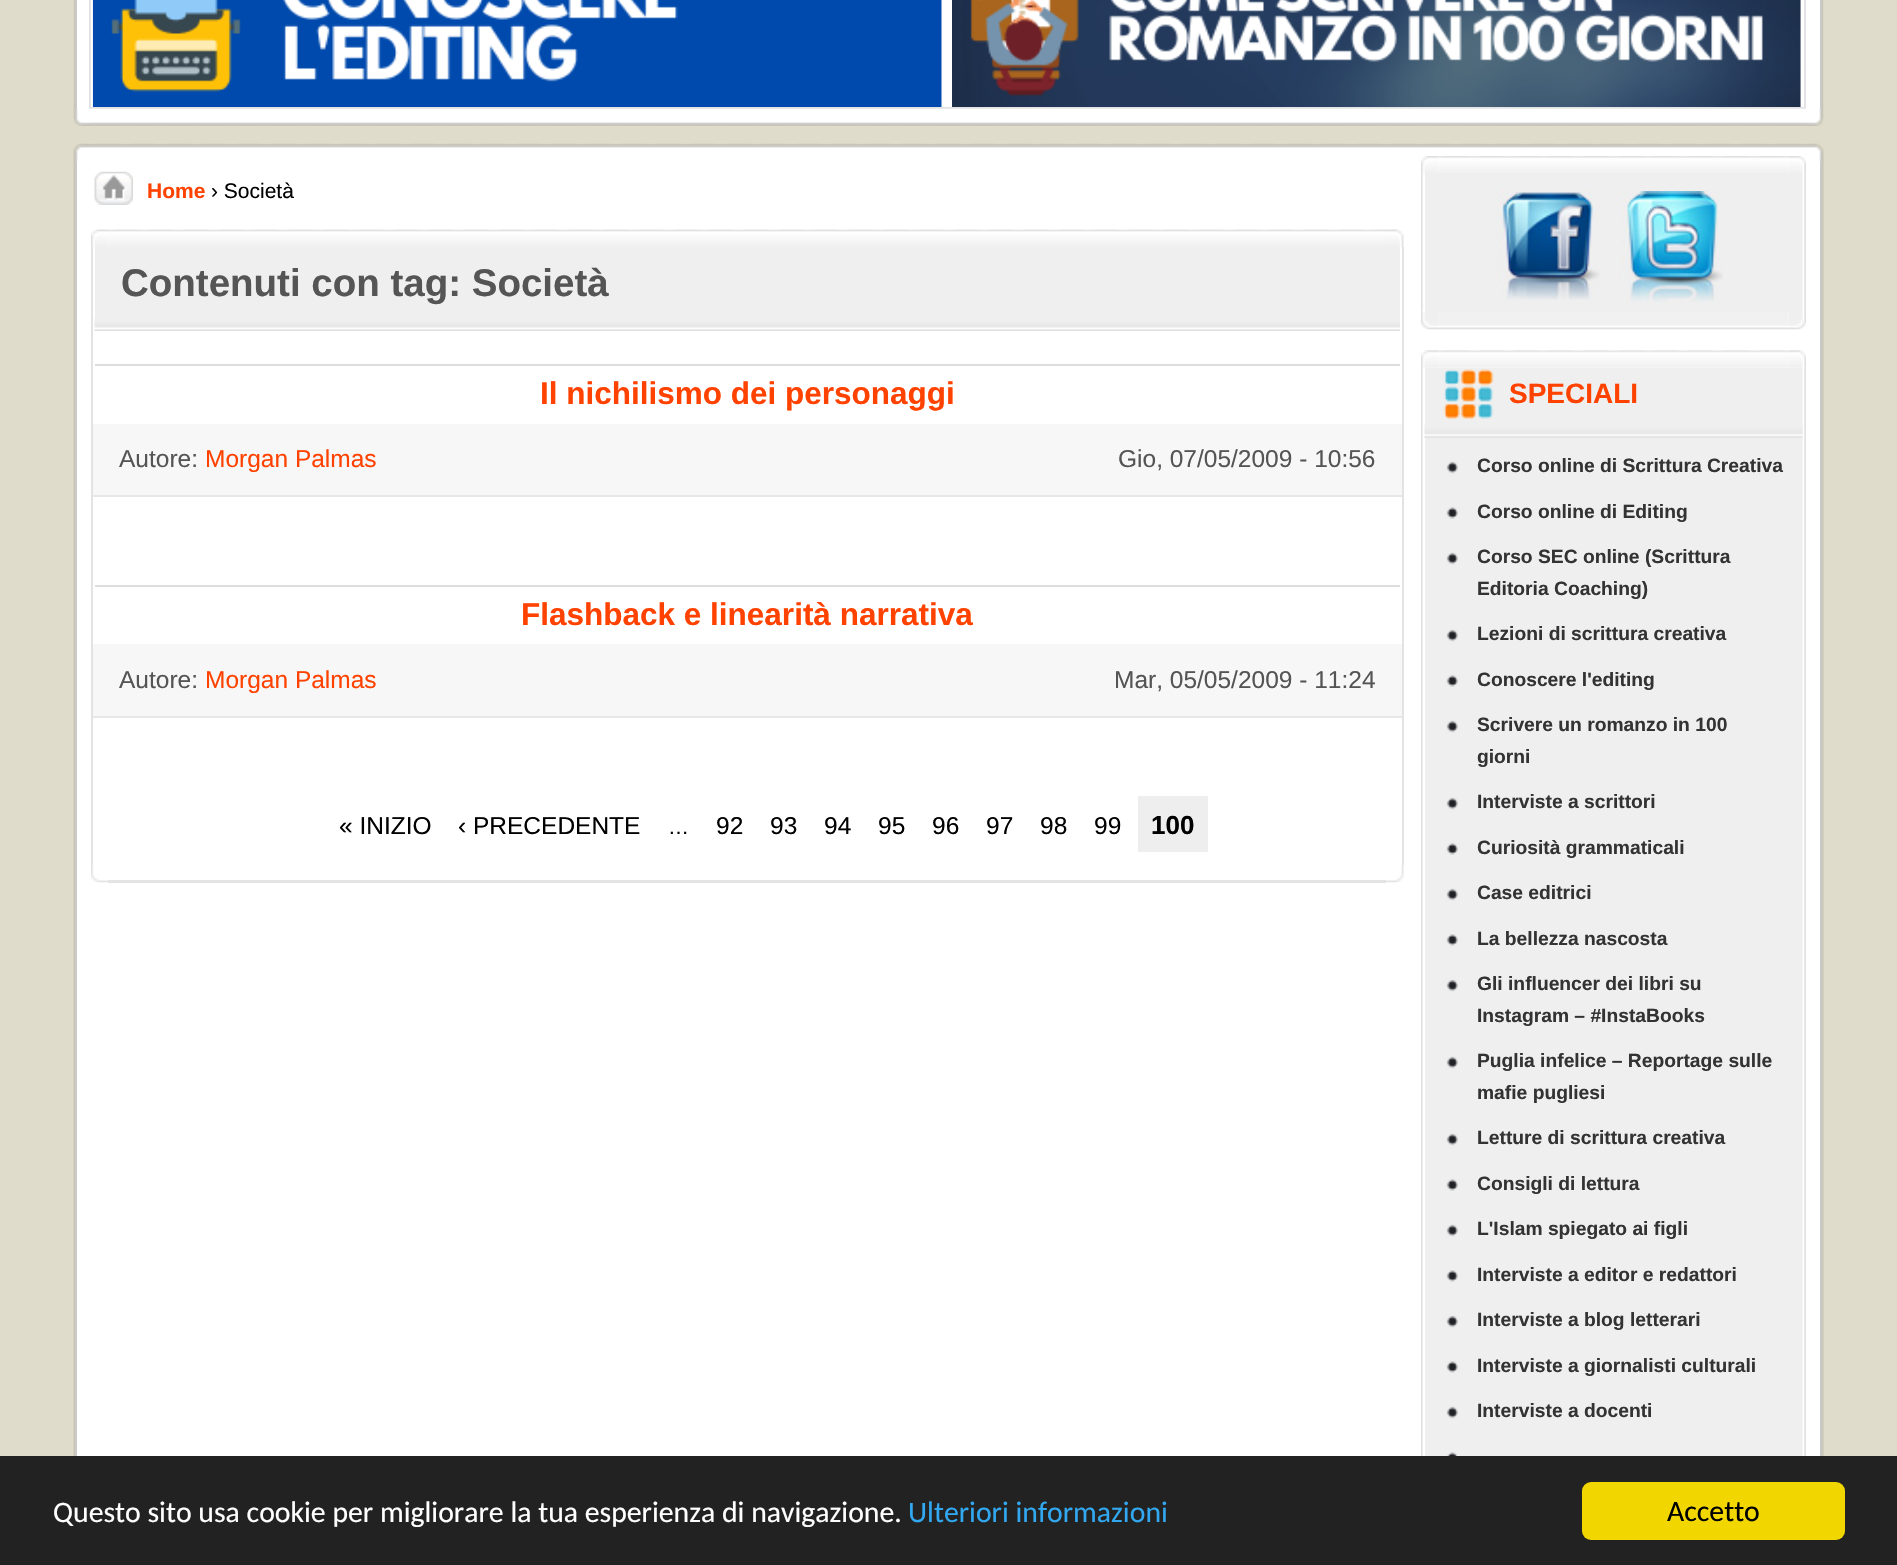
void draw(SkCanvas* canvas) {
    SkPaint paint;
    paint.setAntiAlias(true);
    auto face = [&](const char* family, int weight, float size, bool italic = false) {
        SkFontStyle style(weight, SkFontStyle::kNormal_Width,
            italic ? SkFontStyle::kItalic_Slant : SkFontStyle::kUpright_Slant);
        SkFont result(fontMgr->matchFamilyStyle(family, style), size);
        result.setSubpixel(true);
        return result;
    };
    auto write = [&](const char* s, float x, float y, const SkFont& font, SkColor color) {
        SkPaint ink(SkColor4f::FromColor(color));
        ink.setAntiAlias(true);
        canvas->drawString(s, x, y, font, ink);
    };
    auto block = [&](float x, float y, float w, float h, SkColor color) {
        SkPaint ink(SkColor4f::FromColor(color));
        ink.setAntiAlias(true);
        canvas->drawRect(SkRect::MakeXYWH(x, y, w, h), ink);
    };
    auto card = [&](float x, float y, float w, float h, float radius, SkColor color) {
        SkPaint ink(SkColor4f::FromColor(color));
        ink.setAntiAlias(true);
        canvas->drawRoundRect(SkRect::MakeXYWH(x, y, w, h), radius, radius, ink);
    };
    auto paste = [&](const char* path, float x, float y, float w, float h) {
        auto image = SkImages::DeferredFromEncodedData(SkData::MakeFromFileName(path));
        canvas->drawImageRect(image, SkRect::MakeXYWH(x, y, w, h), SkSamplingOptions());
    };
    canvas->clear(SkColorSetRGB(224, 220, 203));
    block(77, 0, 1743, 109, SK_ColorWHITE);
    paste("pic1.png", 73, 0, 4, 109);
    paste("pic2.png", 1820, 0, 4, 109);
    paint.setStyle(SkPaint::kStroke_Style);
    paint.setStrokeWidth(2);
    paint.setColor(SkColorSetRGB(227, 227, 227));
    canvas->drawRect(SkRect::MakeXYWH(90, -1, 1715, 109), paint);
    paste("pic3.png", 92, 0, 850, 107);
    paste("pic4.png", 952, 0, 849, 107);
    paste("pic5.png", 91, 108, 1715, 18);
    paste("pic6.png", 73, 108, 18, 18);
    paste("pic7.png", 1806, 108, 18, 18);
    paste("pic8.png", 91, 143, 1715, 18);
    block(77, 161, 1743, 1295, SK_ColorWHITE);
    paste("pic11.png", 73, 161, 4, 1295);
    paste("pic9.png", 73, 143, 18, 19);
    paste("pic12.png", 1820, 161, 4, 1295);
    paste("pic10.png", 1806, 143, 18, 19);
    paste("pic13.png", 94, 171, 39, 34);
    auto kFont1 = face("Liberation Sans", 700, 21);
    write("Home", 147, 198, kFont1, SkColorSetRGB(255, 66, 0));
    auto kFont2 = face("Liberation Sans", 400, 21);
    write("› Società", 211, 198, kFont2, SK_ColorBLACK);
    paste("pic14.png", 108, 229, 1278, 18);
    paste("pic15.png", 91, 229, 18, 18);
    paste("pic16.png", 1386, 229, 18, 18);
    block(1402, 247, 2, 618, SkColorSetRGB(227, 227, 227));
    block(91, 247, 2, 618, SkColorSetRGB(227, 227, 227));
    block(95, 247, 1305, 70, SkColorSetRGB(239, 239, 239));
    paste("pic17.png", 94, 317, 1306, 14);
    auto kFont3 = face("Liberation Sans", 700, 38.5f);
    write("Contenuti con tag: Società", 121, 296, kFont3, SkColorSetRGB(85, 85, 85));
    block(95, 364, 1305, 2, SkColorSetRGB(221, 221, 221));
    auto kFont4 = face("Liberation Sans", 700, 31.5f);
    write("Il nichilismo dei personaggi", 540, 404, kFont4, SkColorSetRGB(255, 66, 0));
    block(93, 424, 1309, 71, SkColorSetRGB(247, 247, 247));
    block(93, 495, 1309, 2, SkColorSetRGB(231, 231, 231));
    auto kFont5 = face("Liberation Sans", 400, 24.5f);
    write("Autore:", 119, 467, kFont5, SkColorSetRGB(85, 85, 85));
    write("Morgan Palmas", 205, 467, kFont5, SkColorSetRGB(255, 66, 0));
    write("Gio, 07/05/2009 - 10:56", 1118, 467, kFont5, SkColorSetRGB(85, 85, 85));
    block(95, 585, 1305, 2, SkColorSetRGB(221, 221, 221));
    write("Flashback e linearità narrativa", 521, 625, kFont4, SkColorSetRGB(255, 66, 0));
    block(93, 644, 1309, 72, SkColorSetRGB(247, 247, 247));
    block(93, 716, 1309, 2, SkColorSetRGB(231, 231, 231));
    write("Autore:", 119, 688, kFont5, SkColorSetRGB(85, 85, 85));
    write("Morgan Palmas", 205, 688, kFont5, SkColorSetRGB(255, 66, 0));
    write("Mar, 05/05/2009 - 11:24", 1114, 688, kFont5, SkColorSetRGB(85, 85, 85));
    write("« INIZIO", 339, 834, kFont5, SK_ColorBLACK);
    write("‹ PRECEDENTE", 458, 834, kFont5, SK_ColorBLACK);
    write("…", 668, 834, kFont2, SK_ColorBLACK);
    write("92", 716, 834, kFont5, SK_ColorBLACK);
    write("93", 770, 834, kFont5, SK_ColorBLACK);
    write("94", 824, 834, kFont5, SK_ColorBLACK);
    write("95", 878, 834, kFont5, SK_ColorBLACK);
    write("96", 932, 834, kFont5, SK_ColorBLACK);
    write("97", 986, 834, kFont5, SK_ColorBLACK);
    write("98", 1040, 834, kFont5, SK_ColorBLACK);
    write("99", 1094, 834, kFont5, SK_ColorBLACK);
    block(1138, 796, 70, 56, SkColorSetRGB(238, 238, 238));
    auto kFont6 = face("Liberation Sans", 700, 26);
    write("100", 1151, 834, kFont6, SK_ColorBLACK);
    block(108, 880, 1278, 3, SkColorSetRGB(228, 228, 228));
    paste("pic18.png", 91, 865, 18, 18);
    paste("pic19.png", 1386, 865, 18, 18);
    paste("pic20.png", 1438, 156, 351, 17);
    block(1425, 173, 378, 139, SkColorSetRGB(239, 239, 239));
    paste("pic23.png", 1421, 173, 2, 139);
    paste("pic21.png", 1421, 156, 18, 18);
    paste("pic24.png", 1802, 173, 4, 139);
    paste("pic22.png", 1788, 156, 18, 18);
    paste("pic25.png", 1496, 191, 104, 109);
    paste("pic26.png", 1619, 191, 104, 112);
    paste("pic27.png", 1438, 312, 351, 18);
    paste("pic28.png", 1421, 312, 18, 18);
    paste("pic29.png", 1788, 312, 18, 18);
    paste("pic30.png", 1438, 350, 351, 18);
    paste("pic33.png", 1421, 367, 2, 1089);
    paste("pic31.png", 1421, 350, 18, 18);
    block(1425, 368, 378, 1088, SkColorSetRGB(239, 239, 239));
    paste("pic34.png", 1802, 367, 4, 1089);
    paste("pic32.png", 1788, 350, 18, 18);
    paste("pic35.png", 1443, 369, 51, 50);
    paste("pic36.png", 1424, 424, 379, 14);
    auto kFont7 = face("Liberation Sans", 700, 28);
    write("SPECIALI", 1509, 403, kFont7, SkColorSetRGB(255, 66, 0));
    paste("pic37.png", 1446, 461, 12, 13);
    auto kFont8 = face("Liberation Sans", 700, 19.25f);
    write("Corso online di Scrittura Creativa", 1477, 472, kFont8, SkColorSetRGB(51, 51, 51));
    paste("pic38.png", 1446, 507, 12, 12);
    write("Corso online di Editing", 1477, 518, kFont8, SkColorSetRGB(51, 51, 51));
    paste("pic37.png", 1446, 552, 12, 13);
    write("Corso SEC online (Scrittura", 1477, 563, kFont8, SkColorSetRGB(51, 51, 51));
    write("Editoria Coaching)", 1477, 595, kFont8, SkColorSetRGB(51, 51, 51));
    paste("pic37.png", 1446, 629, 12, 13);
    write("Lezioni di scrittura creativa", 1477, 640, kFont8, SkColorSetRGB(51, 51, 51));
    paste("pic38.png", 1446, 675, 12, 12);
    write("Conoscere l'editing", 1477, 686, kFont8, SkColorSetRGB(51, 51, 51));
    paste("pic37.png", 1446, 720, 12, 13);
    write("Scrivere un romanzo in 100", 1477, 731, kFont8, SkColorSetRGB(51, 51, 51));
    write("giorni", 1477, 763, kFont8, SkColorSetRGB(51, 51, 51));
    paste("pic37.png", 1446, 797, 12, 13);
    write("Interviste a scrittori", 1477, 808, kFont8, SkColorSetRGB(51, 51, 51));
    paste("pic38.png", 1446, 843, 12, 12);
    write("Curiosità grammaticali", 1477, 854, kFont8, SkColorSetRGB(51, 51, 51));
    paste("pic37.png", 1446, 888, 12, 13);
    write("Case editrici", 1477, 899, kFont8, SkColorSetRGB(51, 51, 51));
    paste("pic38.png", 1446, 934, 12, 12);
    write("La bellezza nascosta", 1477, 945, kFont8, SkColorSetRGB(51, 51, 51));
    paste("pic37.png", 1446, 979, 12, 13);
    write("Gli influencer dei libri su", 1477, 990, kFont8, SkColorSetRGB(51, 51, 51));
    write("Instagram – #InstaBooks", 1477, 1022, kFont8, SkColorSetRGB(51, 51, 51));
    paste("pic37.png", 1446, 1056, 12, 13);
    write("Puglia infelice – Reportage sulle", 1477, 1067, kFont8, SkColorSetRGB(51, 51, 51));
    write("mafie pugliesi", 1477, 1099, kFont8, SkColorSetRGB(51, 51, 51));
    paste("pic37.png", 1446, 1133, 12, 13);
    write("Letture di scrittura creativa", 1477, 1144, kFont8, SkColorSetRGB(51, 51, 51));
    paste("pic38.png", 1446, 1179, 12, 12);
    write("Consigli di lettura", 1477, 1190, kFont8, SkColorSetRGB(51, 51, 51));
    paste("pic37.png", 1446, 1224, 12, 13);
    write("L'Islam spiegato ai figli", 1477, 1235, kFont8, SkColorSetRGB(51, 51, 51));
    paste("pic38.png", 1446, 1270, 12, 12);
    write("Interviste a editor e redattori", 1477, 1281, kFont8, SkColorSetRGB(51, 51, 51));
    paste("pic37.png", 1446, 1315, 12, 13);
    write("Interviste a blog letterari", 1477, 1326, kFont8, SkColorSetRGB(51, 51, 51));
    paste("pic38.png", 1446, 1361, 12, 12);
    write("Interviste a giornalisti culturali", 1477, 1372, kFont8, SkColorSetRGB(51, 51, 51));
    paste("pic37.png", 1446, 1406, 12, 13);
    write("Interviste a docenti", 1477, 1417, kFont8, SkColorSetRGB(51, 51, 51));
    paste("pic39.png", 1447, 1452, 10, 4);
    block(0, 1456, 1897, 109, SkColorSetRGB(34, 34, 34));
    auto kFont9 = face("Carlito", 400, 29.75f);
    write("Questo sito usa cookie per migliorare la tua esperienza di navigazione.", 53, 1522, kFont9, SK_ColorWHITE);
    write("Ulteriori informazioni", 908, 1522, kFont9, SkColorSetRGB(49, 168, 240));
    card(1582, 1482, 263, 58, 9, SkColorSetRGB(241, 214, 0));
    write("Accetto", 1667, 1521, kFont9, SK_ColorBLACK);
}
